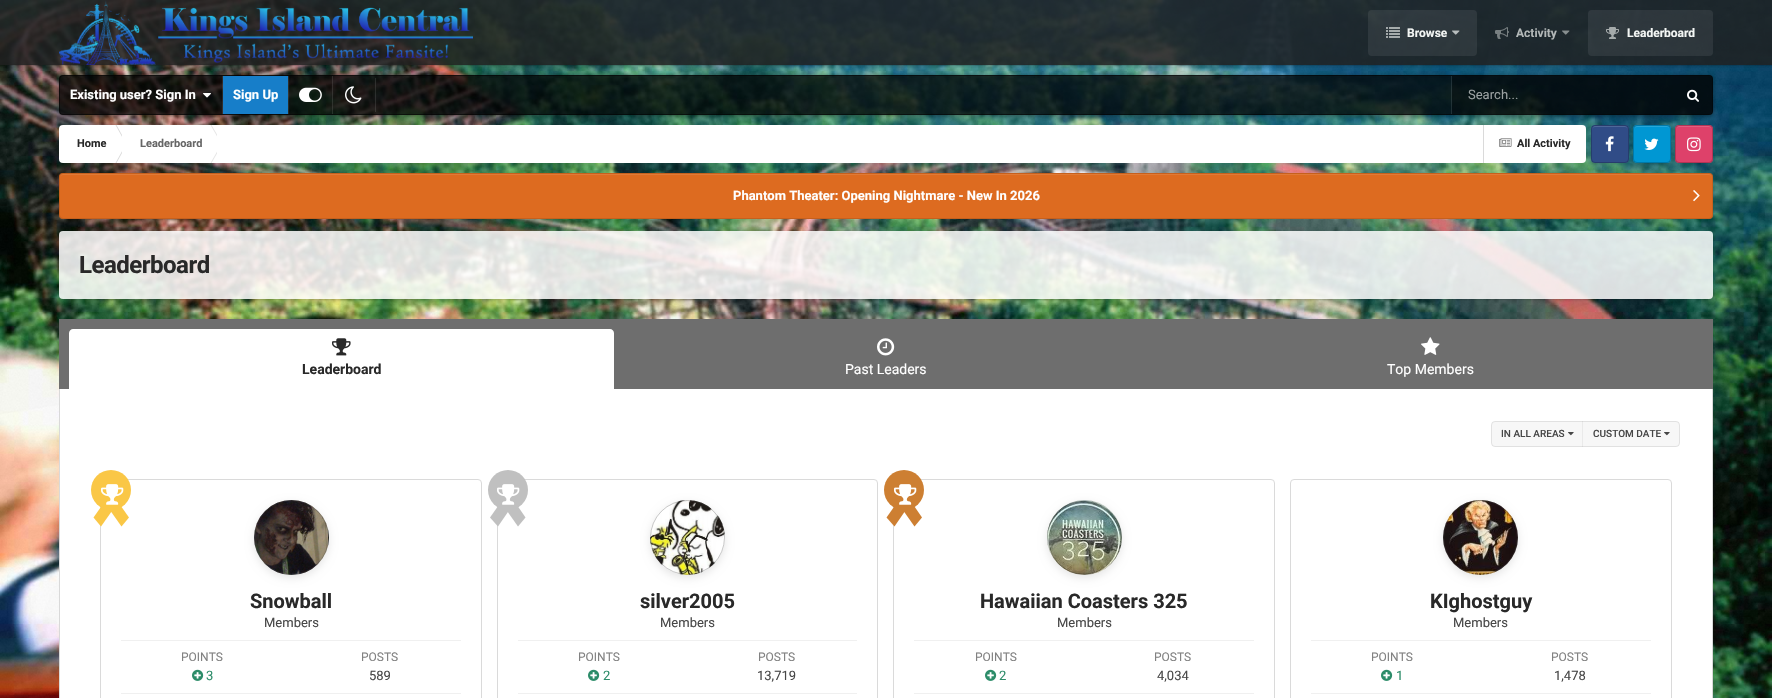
void draw(SkCanvas* canvas) {
    SkPaint paint;
    paint.setAntiAlias(true);
    auto face = [&](const char* family, int weight, float size, bool italic = false) {
        SkFontStyle style(weight, SkFontStyle::kNormal_Width,
            italic ? SkFontStyle::kItalic_Slant : SkFontStyle::kUpright_Slant);
        SkFont result(fontMgr->matchFamilyStyle(family, style), size);
        result.setSubpixel(true);
        return result;
    };
    auto write = [&](const char* s, float x, float y, const SkFont& font, SkColor color) {
        SkPaint ink(SkColor4f::FromColor(color));
        ink.setAntiAlias(true);
        canvas->drawString(s, x, y, font, ink);
    };
    auto writeSpaced = [&](const char* s, float x, float y, const SkFont& font, const SkPaint& ink, float letter, float word) {
        std::vector<SkGlyphID> glyphs(font.countText(s, strlen(s), SkTextEncoding::kUTF8));
        std::vector<float> xs(glyphs.size());
        font.textToGlyphs(s, strlen(s), SkTextEncoding::kUTF8, glyphs);
        font.getXPos(glyphs, xs, x);
        float extra = 0;
        for (size_t i = 0; i < glyphs.size(); i++) {
            xs[i] += extra;
            extra += letter + word * (glyphs[i] == font.unicharToGlyph(' '));
        }
        canvas->drawTextBlob(SkTextBlob::MakeFromPosHGlyphs(glyphs, xs, y, font), 0, 0, ink);
    };
    auto block = [&](float x, float y, float w, float h, SkColor color) {
        SkPaint ink(SkColor4f::FromColor(color));
        ink.setAntiAlias(true);
        canvas->drawRect(SkRect::MakeXYWH(x, y, w, h), ink);
    };
    auto card = [&](float x, float y, float w, float h, float radius, SkColor color) {
        SkPaint ink(SkColor4f::FromColor(color));
        ink.setAntiAlias(true);
        canvas->drawRoundRect(SkRect::MakeXYWH(x, y, w, h), radius, radius, ink);
    };
    auto paste = [&](const char* path, float x, float y, float w, float h) {
        auto image = SkImages::DeferredFromEncodedData(SkData::MakeFromFileName(path));
        canvas->drawImageRect(image, SkRect::MakeXYWH(x, y, w, h), SkSamplingOptions());
    };
    canvas->clear(SK_ColorWHITE);
    paste("pic1.png", 0, 0, 1772, 698);
    paste("pic2.png", 0, 0, 1772, 698);
    block(0, 65, 1772, 1, SkColorSetARGB(26, 0, 0, 0));
    canvas->save();
    canvas->clipRect(SkRect::MakeXYWH(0, 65, 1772, 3));
    paint.setColor(SkColorSetARGB(38, 0, 0, 0));
    paint.setMaskFilter(SkMaskFilter::MakeBlur(kNormal_SkBlurStyle, 2));
    canvas->drawRect(SkRect::MakeXYWH(0, 1, 1772, 65), paint);
    paint.setMaskFilter(nullptr);
    canvas->restore();
    block(0, 0, 1772, 65, SkColorSetARGB(217, 30, 30, 30));
    paste("pic3.png", 59, 0, 414, 65);
    card(1368, 10, 109, 46, 4, SkColorSetARGB(20, 243, 246, 244));
    paste("pic4.png", 1386, 27, 14, 11);
    auto kFont1 = face("Roboto", 700, 12);
    write("Browse", 1407, 37, kFont1, SkColorSetRGB(243, 246, 244));
    paste("pic5.png", 1452, 30, 8, 5);
    paste("pic6.png", 1495, 27, 14, 12);
    write("Activity", 1516, 37, kFont1, SkColorSetRGB(179, 184, 184));
    paste("pic7.png", 1562, 30, 8, 5);
    card(1588, 10, 125, 46, 4, SkColorSetARGB(20, 243, 246, 244));
    paste("pic8.png", 1606, 27, 13, 12);
    write("Leaderboard", 1627, 37, kFont1, SkColorSetRGB(243, 246, 244));
    canvas->save();
    canvas->clipPath(SkPathBuilder(SkPathFillType::kEvenOdd).moveTo(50, 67).lineTo(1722, 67).lineTo(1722, 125).lineTo(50, 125).close().moveTo(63, 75).lineTo(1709, 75).cubicTo(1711, 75, 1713, 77, 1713, 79).lineTo(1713, 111).cubicTo(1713, 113, 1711, 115, 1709, 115).lineTo(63, 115).cubicTo(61, 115, 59, 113, 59, 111).lineTo(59, 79).cubicTo(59, 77, 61, 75, 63, 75).close().detach(), true);
    paint.setColor(SkColorSetARGB(102, 0, 0, 0));
    paint.setMaskFilter(SkMaskFilter::MakeBlur(kNormal_SkBlurStyle, 2.5f));
    canvas->drawRoundRect(SkRect::MakeXYWH(59, 76, 1654, 40), 4, 4, paint);
    paint.setMaskFilter(nullptr);
    canvas->restore();
    card(59, 75, 1654, 40, 4, SkColorSetARGB(191, 0, 0, 0));
    paint.setStyle(SkPaint::kStroke_Style);
    paint.setStrokeWidth(1);
    paint.setColor(SkColorSetARGB(128, 0, 0, 0));
    canvas->drawRoundRect(SkRect::MakeXYWH(59.5f, 75.5f, 1653, 39), 3.5f, 3.5f, paint);
    block(222, 76, 1, 38, SkColorSetARGB(26, 255, 255, 255));
    auto kFont2 = face("Roboto", 700, 13);
    write("Existing user? Sign In", 70, 99, kFont2, SK_ColorWHITE);
    paste("pic9.png", 203, 93, 8, 5);
    block(288, 76, 1, 38, SkColorSetARGB(26, 255, 255, 255));
    block(223, 76, 65, 38, SkColorSetRGB(23, 126, 201));
    write("Sign Up", 233, 99, kFont2, SK_ColorWHITE);
    block(332, 76, 1, 38, SkColorSetARGB(26, 255, 255, 255));
    paste("pic10.png", 299, 87, 23, 15);
    block(375, 78, 1, 34, SkColorSetARGB(26, 255, 255, 255));
    paste("pic11.png", 345, 86, 17, 18);
    block(1451, 76, 1, 38, SkColorSetARGB(26, 255, 255, 255));
    paint.setStyle(SkPaint::kFill_Style);
    paint.setColor(SkColorSetARGB(77, 0, 0, 0));
    canvas->drawPath(SkPathBuilder().moveTo(1452, 76).lineTo(1708, 76).cubicTo(1710, 76, 1712, 78, 1712, 80).lineTo(1712, 110).cubicTo(1712, 112, 1710, 114, 1708, 114).lineTo(1452, 114).close().detach(), paint);
    auto kFont3 = face("Roboto", 400, 13);
    write("Search...", 1468, 99, kFont3, SkColorSetRGB(155, 161, 162));
    paste("pic12.png", 1687, 89, 12, 13);
    card(59, 125, 1527, 38, 4, SK_ColorWHITE);
    {
        const SkColor colors[] = {SkColorSetARGB(13, 255, 255, 255), SkColorSetARGB(0, 255, 255, 255)};
        const float stops[] = {0, 1};
        const SkPoint ends[] = {{823, 125}, {823, 163}};
        paint.setShader(SkGradientShader::MakeLinear(ends, colors, stops, 2, SkTileMode::kClamp));
        paint.setAlpha(255);
    }
    canvas->drawRect(SkRect::MakeXYWH(59, 125, 1527, 3), paint);
    auto kFont4 = face("Roboto", 700, 11);
    write("Home", 77, 147, kFont4, SkColorSetRGB(41, 41, 41));
    canvas->save();
    canvas->clipRect(SkRect::MakeXYWH(59, 125, 63, 38));
    paint.setShader(nullptr);
    paint.setColor(SkColorSetRGB(218, 218, 218));
    canvas->drawPath(SkPathBuilder().moveTo(115.5f, 125).lineTo(116.5f, 125).lineTo(127, 144).lineTo(126, 144).close().moveTo(115.5f, 163).lineTo(116.5f, 163).lineTo(127, 144).lineTo(126, 144).close().detach(), paint);
    canvas->restore();
    write("Leaderboard", 140, 147, kFont4, SkColorSetRGB(102, 102, 102));
    canvas->save();
    canvas->clipRect(SkRect::MakeXYWH(122, 125, 95, 38));
    paint.setColor(SkColorSetRGB(229, 229, 229));
    canvas->drawPath(SkPathBuilder().moveTo(210.5f, 125).lineTo(211.5f, 125).lineTo(222.5f, 144).lineTo(221.5f, 144).close().moveTo(210.5f, 163).lineTo(211.5f, 163).lineTo(222.5f, 144).lineTo(221.5f, 144).close().detach(), paint);
    canvas->restore();
    block(1483, 125, 1, 38, SkColorSetRGB(218, 218, 218));
    paste("pic13.png", 1499, 138, 13, 9);
    write("All Activity", 1517, 147, kFont4, SkColorSetRGB(41, 41, 41));
    paint.setColor(SkColorSetARGB(26, 0, 0, 0));
    paint.setMaskFilter(SkMaskFilter::MakeBlur(kNormal_SkBlurStyle, 1.5f));
    canvas->drawRoundRect(SkRect::MakeXYWH(1591, 126, 38, 38), 4, 4, paint);
    paint.setMaskFilter(nullptr);
    card(1591, 125, 38, 38, 4, SkColorSetRGB(48, 76, 135));
    paint.setColor(SkColorSetRGB(79, 103, 153));
    canvas->drawPath(SkPathBuilder().moveTo(1595, 127).cubicTo(1593, 127, 1592, 128, 1592, 130).cubicTo(1592, 125, 1596, 126, 1600, 126).lineTo(1620, 126).cubicTo(1624, 126, 1628, 125, 1628, 130).cubicTo(1628, 128, 1627, 127, 1625, 127).close().detach(), paint);
    paste("pic14.png", 1605, 136, 9, 16);
    paint.setStyle(SkPaint::kStroke_Style);
    paint.setColor(SkColorSetARGB(51, 0, 0, 0));
    canvas->drawRoundRect(SkRect::MakeXYWH(1591.5f, 125.5f, 37, 37), 3.5f, 3.5f, paint);
    paint.setStyle(SkPaint::kFill_Style);
    paint.setColor(SkColorSetARGB(26, 0, 0, 0));
    paint.setMaskFilter(SkMaskFilter::MakeBlur(kNormal_SkBlurStyle, 1.5f));
    canvas->drawRoundRect(SkRect::MakeXYWH(1633, 126, 38, 38), 4, 4, paint);
    paint.setMaskFilter(nullptr);
    card(1633, 125, 38, 38, 4, SkColorSetRGB(0, 151, 211));
    paint.setColor(SkColorSetRGB(38, 167, 218));
    canvas->drawPath(SkPathBuilder().moveTo(1637, 127).cubicTo(1635, 127, 1634, 128, 1634, 130).cubicTo(1634, 125, 1638, 126, 1642, 126).lineTo(1662, 126).cubicTo(1666, 126, 1670, 125, 1670, 130).cubicTo(1670, 128, 1669, 127, 1667, 127).close().detach(), paint);
    paste("pic15.png", 1644, 138, 15, 12);
    paint.setStyle(SkPaint::kStroke_Style);
    paint.setColor(SkColorSetARGB(51, 0, 0, 0));
    canvas->drawRoundRect(SkRect::MakeXYWH(1633.5f, 125.5f, 37, 37), 3.5f, 3.5f, paint);
    paint.setStyle(SkPaint::kFill_Style);
    paint.setColor(SkColorSetARGB(26, 0, 0, 0));
    paint.setMaskFilter(SkMaskFilter::MakeBlur(kNormal_SkBlurStyle, 1.5f));
    canvas->drawRoundRect(SkRect::MakeXYWH(1675, 126, 38, 38), 4, 4, paint);
    paint.setMaskFilter(nullptr);
    card(1675, 125, 38, 38, 4, SkColorSetRGB(222, 65, 106));
    paint.setColor(SkColorSetRGB(227, 94, 128));
    canvas->drawPath(SkPathBuilder().moveTo(1679, 127).cubicTo(1677, 127, 1676, 128, 1676, 130).cubicTo(1676, 125, 1680, 126, 1684, 126).lineTo(1704, 126).cubicTo(1708, 126, 1712, 125, 1712, 130).cubicTo(1712, 128, 1711, 127, 1709, 127).close().detach(), paint);
    paste("pic16.png", 1687, 137, 14, 15);
    paint.setStyle(SkPaint::kStroke_Style);
    paint.setColor(SkColorSetARGB(51, 0, 0, 0));
    canvas->drawRoundRect(SkRect::MakeXYWH(1675.5f, 125.5f, 37, 37), 3.5f, 3.5f, paint);
    card(59, 173, 1654, 46, 4, SkColorSetRGB(221, 107, 32));
    paint.setStyle(SkPaint::kFill_Style);
    paint.setColor(SkColorSetRGB(224, 122, 54));
    canvas->drawPath(SkPathBuilder().moveTo(63, 175).lineTo(1709, 175).cubicTo(1711, 175, 1712, 176, 1712, 178).lineTo(1712, 177).cubicTo(1712, 175, 1711, 174, 1709, 174).lineTo(63, 174).cubicTo(61, 174, 60, 175, 60, 177).lineTo(60, 178).cubicTo(60, 176, 61, 175, 63, 175).close().detach(), paint);
    paint.setStyle(SkPaint::kStroke_Style);
    paint.setColor(SkColorSetARGB(26, 0, 0, 0));
    canvas->drawRoundRect(SkRect::MakeXYWH(59.5f, 173.5f, 1653, 45), 3.5f, 3.5f, paint);
    write("Phantom Theater: Opening Nightmare - New In 2026", 733, 200, kFont2, SK_ColorWHITE);
    paste("pic17.png", 1693, 190, 7, 12);
    canvas->save();
    canvas->clipPath(SkPathBuilder(SkPathFillType::kEvenOdd).moveTo(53, 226).lineTo(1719, 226).lineTo(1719, 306).lineTo(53, 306).close().moveTo(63, 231).lineTo(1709, 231).cubicTo(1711, 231, 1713, 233, 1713, 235).lineTo(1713, 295).cubicTo(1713, 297, 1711, 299, 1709, 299).lineTo(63, 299).cubicTo(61, 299, 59, 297, 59, 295).lineTo(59, 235).cubicTo(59, 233, 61, 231, 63, 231).close().detach(), true);
    paint.setStyle(SkPaint::kFill_Style);
    paint.setColor(SkColorSetARGB(51, 0, 0, 0));
    paint.setMaskFilter(SkMaskFilter::MakeBlur(kNormal_SkBlurStyle, 1.5f));
    canvas->drawRoundRect(SkRect::MakeXYWH(59, 232, 1654, 68), 4, 4, paint);
    paint.setMaskFilter(nullptr);
    canvas->restore();
    card(59, 231, 1654, 68, 4, SkColorSetARGB(217, 255, 255, 255));
    auto kFont5 = face("Roboto", 700, 24);
    paint.setColor(SkColorSetRGB(41, 41, 41));
    writeSpaced("Leaderboard", 79, 273, kFont5, paint, -0.5f, 0);
    block(59, 319, 1654, 70, SkColorSetRGB(110, 110, 110));
    paint.setColor(SK_ColorWHITE);
    canvas->drawPath(SkPathBuilder().moveTo(73, 329).lineTo(610, 329).cubicTo(612, 329, 614, 331, 614, 333).lineTo(614, 389).lineTo(69, 389).lineTo(69, 333).cubicTo(69, 331, 71, 329, 73, 329).close().detach(), paint);
    paste("pic18.png", 332, 338, 19, 18);
    auto kFont6 = face("Roboto", 700, 14);
    write("Leaderboard", 302, 374, kFont6, SkColorSetRGB(41, 41, 41));
    paste("pic19.png", 877, 338, 18, 18);
    auto kFont7 = face("Roboto", 400, 14);
    write("Past Leaders", 845, 374, kFont7, SK_ColorWHITE);
    paste("pic20.png", 1421, 337, 19, 18);
    write("Top Members", 1387, 374, kFont7, SK_ColorWHITE);
    block(60, 389, 1652, 309, SK_ColorWHITE);
    block(1712, 389, 1, 309, SkColorSetRGB(217, 217, 217));
    block(59, 389, 1, 309, SkColorSetRGB(217, 217, 217));
    paint.setColor(SkColorSetRGB(247, 247, 247));
    canvas->drawPath(SkPathBuilder().moveTo(1495, 421).lineTo(1583, 421).lineTo(1583, 447).lineTo(1495, 447).cubicTo(1493, 447, 1491, 445, 1491, 443).lineTo(1491, 425).cubicTo(1491, 423, 1493, 421, 1495, 421).close().detach(), paint);
    paste("pic21.png", 1568, 432, 6, 4);
    canvas->drawPath(SkPathBuilder().moveTo(1583, 421).lineTo(1676, 421).cubicTo(1678, 421, 1680, 423, 1680, 425).lineTo(1680, 443).cubicTo(1680, 445, 1678, 447, 1676, 447).lineTo(1583, 447).close().detach(), paint);
    block(1582, 421, 1, 26, SkColorSetRGB(234, 234, 234));
    paste("pic21.png", 1664, 432, 6, 4);
    paint.setStyle(SkPaint::kStroke_Style);
    paint.setColor(SkColorSetARGB(26, 41, 41, 41));
    canvas->drawRoundRect(SkRect::MakeXYWH(1491.5f, 421.5f, 188, 25), 3.5f, 3.5f, paint);
    auto kFont8 = face("Roboto", 500, 10);
    write("IN ALL AREAS", 1501, 437, kFont8, SkColorSetRGB(71, 71, 71));
    write("CUSTOM DATE", 1593, 437, kFont8, SkColorSetRGB(71, 71, 71));
    paint.setColor(SkColorSetRGB(218, 218, 218));
    canvas->drawRoundRect(SkRect::MakeXYWH(100.5f, 479.5f, 381, 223), 3.5f, 3.5f, paint);
    paint.setStyle(SkPaint::kFill_Style);
    paint.setColor(SkColorSetRGB(250, 199, 70));
    canvas->drawCircle(111, 490, 20, paint);
    canvas->drawPath(SkPathBuilder().moveTo(111.5f, 492).lineTo(119, 501).lineTo(101, 526.5f).lineTo(93.5f, 517.5f).close().detach(), paint);
    canvas->drawPath(SkPathBuilder().moveTo(103.5f, 501).lineTo(111, 492).lineTo(129, 517.5f).lineTo(121.5f, 526.5f).close().detach(), paint);
    paste("pic22.png", 101, 484, 23, 21);
    paste("pic23.png", 254, 500, 75, 75);
    canvas->save();
    canvas->clipPath(SkPathBuilder(SkPathFillType::kEvenOdd).moveTo(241, 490).lineTo(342, 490).lineTo(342, 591).lineTo(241, 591).close().moveTo(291.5f, 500).cubicTo(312, 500, 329, 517, 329, 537.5f).cubicTo(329, 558, 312, 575, 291.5f, 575).cubicTo(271, 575, 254, 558, 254, 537.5f).cubicTo(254, 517, 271, 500, 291.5f, 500).close().detach(), true);
    paint.setColor(SkColorSetARGB(26, 0, 0, 0));
    paint.setMaskFilter(SkMaskFilter::MakeBlur(kNormal_SkBlurStyle, 4));
    canvas->drawRoundRect(SkRect::MakeXYWH(254, 503, 75, 75), 37.5f, 37.5f, paint);
    paint.setMaskFilter(nullptr);
    canvas->restore();
    paint.setStyle(SkPaint::kStroke_Style);
    paint.setColor(SkColorSetARGB(77, 71, 71, 71));
    canvas->drawCircle(291.5f, 537.5f, 37, paint);
    auto kFont9 = face("Roboto", 700, 20);
    write("Snowball", 250, 608, kFont9, SkColorSetRGB(41, 41, 41));
    write("Members", 264, 627, kFont3, SkColorSetRGB(71, 71, 71));
    block(121, 640, 340, 1, SkColorSetRGB(240, 240, 240));
    auto kFont10 = face("Roboto", 400, 12);
    write("POINTS", 181, 661, kFont10, SkColorSetRGB(130, 130, 130));
    paste("pic24.png", 192, 669, 12, 12);
    write("3", 206, 680, kFont3, SkColorSetRGB(44, 140, 105));
    write("POSTS", 361, 661, kFont10, SkColorSetRGB(130, 130, 130));
    write("589", 369, 680, kFont3, SkColorSetRGB(71, 71, 71));
    block(121, 693, 340, 1, SkColorSetRGB(240, 240, 240));
    paint.setColor(SkColorSetRGB(218, 218, 218));
    canvas->drawRoundRect(SkRect::MakeXYWH(497.5f, 479.5f, 380, 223), 3.5f, 3.5f, paint);
    paint.setStyle(SkPaint::kFill_Style);
    paint.setColor(SkColorSetRGB(192, 192, 192));
    canvas->drawCircle(508, 490, 20, paint);
    canvas->drawPath(SkPathBuilder().moveTo(508, 492).lineTo(515.5f, 501).lineTo(498, 526.5f).lineTo(490, 517.5f).close().detach(), paint);
    canvas->drawPath(SkPathBuilder().moveTo(500, 501).lineTo(508, 492).lineTo(525.5f, 517.5f).lineTo(518, 526.5f).close().detach(), paint);
    paste("pic25.png", 497, 484, 23, 21);
    paste("pic26.png", 650, 500, 75, 75);
    canvas->save();
    canvas->clipPath(SkPathBuilder(SkPathFillType::kEvenOdd).moveTo(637, 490).lineTo(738, 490).lineTo(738, 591).lineTo(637, 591).close().moveTo(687.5f, 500).cubicTo(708, 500, 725, 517, 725, 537.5f).cubicTo(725, 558, 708, 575, 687.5f, 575).cubicTo(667, 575, 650, 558, 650, 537.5f).cubicTo(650, 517, 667, 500, 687.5f, 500).close().detach(), true);
    paint.setColor(SkColorSetARGB(26, 0, 0, 0));
    paint.setMaskFilter(SkMaskFilter::MakeBlur(kNormal_SkBlurStyle, 4));
    canvas->drawRoundRect(SkRect::MakeXYWH(650, 503, 75, 75), 37.5f, 37.5f, paint);
    paint.setMaskFilter(nullptr);
    canvas->restore();
    paint.setStyle(SkPaint::kStroke_Style);
    paint.setColor(SkColorSetARGB(77, 71, 71, 71));
    canvas->drawCircle(687.5f, 537.5f, 37, paint);
    write("silver2005", 640, 608, kFont9, SkColorSetRGB(41, 41, 41));
    write("Members", 660, 627, kFont3, SkColorSetRGB(71, 71, 71));
    block(518, 640, 339, 1, SkColorSetRGB(240, 240, 240));
    write("POINTS", 578, 661, kFont10, SkColorSetRGB(130, 130, 130));
    paste("pic24.png", 588, 669, 12, 12);
    write("2", 603, 680, kFont3, SkColorSetRGB(44, 140, 105));
    write("POSTS", 758, 661, kFont10, SkColorSetRGB(130, 130, 130));
    write("13,719", 757, 680, kFont3, SkColorSetRGB(71, 71, 71));
    block(518, 693, 339, 1, SkColorSetRGB(240, 240, 240));
    paint.setColor(SkColorSetRGB(218, 218, 218));
    canvas->drawRoundRect(SkRect::MakeXYWH(893.5f, 479.5f, 381, 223), 3.5f, 3.5f, paint);
    paint.setStyle(SkPaint::kFill_Style);
    paint.setColor(SkColorSetRGB(205, 127, 50));
    canvas->drawCircle(904, 490, 20, paint);
    canvas->drawPath(SkPathBuilder().moveTo(904.5f, 492).lineTo(912, 501).lineTo(894.5f, 526.5f).lineTo(886.5f, 517.5f).close().detach(), paint);
    canvas->drawPath(SkPathBuilder().moveTo(896.5f, 501).lineTo(904.5f, 492).lineTo(922, 517.5f).lineTo(914.5f, 526.5f).close().detach(), paint);
    paste("pic27.png", 894, 484, 23, 21);
    paste("pic28.png", 1047, 500, 75, 75);
    canvas->save();
    canvas->clipPath(SkPathBuilder(SkPathFillType::kEvenOdd).moveTo(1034, 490).lineTo(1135, 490).lineTo(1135, 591).lineTo(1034, 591).close().moveTo(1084.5f, 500).cubicTo(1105, 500, 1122, 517, 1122, 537.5f).cubicTo(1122, 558, 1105, 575, 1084.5f, 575).cubicTo(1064, 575, 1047, 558, 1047, 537.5f).cubicTo(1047, 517, 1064, 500, 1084.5f, 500).close().detach(), true);
    paint.setColor(SkColorSetARGB(26, 0, 0, 0));
    paint.setMaskFilter(SkMaskFilter::MakeBlur(kNormal_SkBlurStyle, 4));
    canvas->drawRoundRect(SkRect::MakeXYWH(1047, 503, 75, 75), 37.5f, 37.5f, paint);
    paint.setMaskFilter(nullptr);
    canvas->restore();
    paint.setStyle(SkPaint::kStroke_Style);
    paint.setColor(SkColorSetARGB(77, 71, 71, 71));
    canvas->drawCircle(1084.5f, 537.5f, 37, paint);
    write("Hawaiian Coasters 325", 980, 608, kFont9, SkColorSetRGB(41, 41, 41));
    write("Members", 1057, 627, kFont3, SkColorSetRGB(71, 71, 71));
    block(914, 640, 340, 1, SkColorSetRGB(240, 240, 240));
    write("POINTS", 975, 661, kFont10, SkColorSetRGB(130, 130, 130));
    paste("pic24.png", 985, 669, 12, 12);
    write("2", 999, 680, kFont3, SkColorSetRGB(44, 140, 105));
    write("POSTS", 1154, 661, kFont10, SkColorSetRGB(130, 130, 130));
    write("4,034", 1157, 680, kFont3, SkColorSetRGB(71, 71, 71));
    block(914, 693, 340, 1, SkColorSetRGB(240, 240, 240));
    paint.setColor(SkColorSetRGB(218, 218, 218));
    canvas->drawRoundRect(SkRect::MakeXYWH(1290.5f, 479.5f, 381, 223), 3.5f, 3.5f, paint);
    paste("pic29.png", 1443, 500, 75, 75);
    canvas->save();
    canvas->clipPath(SkPathBuilder(SkPathFillType::kEvenOdd).moveTo(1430, 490).lineTo(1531, 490).lineTo(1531, 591).lineTo(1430, 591).close().moveTo(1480.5f, 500).cubicTo(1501, 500, 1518, 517, 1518, 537.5f).cubicTo(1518, 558, 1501, 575, 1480.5f, 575).cubicTo(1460, 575, 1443, 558, 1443, 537.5f).cubicTo(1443, 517, 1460, 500, 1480.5f, 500).close().detach(), true);
    paint.setStyle(SkPaint::kFill_Style);
    paint.setColor(SkColorSetARGB(26, 0, 0, 0));
    paint.setMaskFilter(SkMaskFilter::MakeBlur(kNormal_SkBlurStyle, 4));
    canvas->drawRoundRect(SkRect::MakeXYWH(1443, 503, 75, 75), 37.5f, 37.5f, paint);
    paint.setMaskFilter(nullptr);
    canvas->restore();
    paint.setStyle(SkPaint::kStroke_Style);
    paint.setColor(SkColorSetARGB(77, 71, 71, 71));
    canvas->drawCircle(1480.5f, 537.5f, 37, paint);
    write("KIghostguy", 1430, 608, kFont9, SkColorSetRGB(41, 41, 41));
    write("Members", 1453, 627, kFont3, SkColorSetRGB(71, 71, 71));
    block(1311, 640, 340, 1, SkColorSetRGB(240, 240, 240));
    write("POINTS", 1371, 661, kFont10, SkColorSetRGB(130, 130, 130));
    paste("pic24.png", 1381, 669, 12, 12);
    write("1", 1396, 680, kFont3, SkColorSetRGB(44, 140, 105));
    write("POSTS", 1551, 661, kFont10, SkColorSetRGB(130, 130, 130));
    write("1,478", 1554, 680, kFont3, SkColorSetRGB(71, 71, 71));
    block(1311, 693, 340, 1, SkColorSetRGB(240, 240, 240));
}
